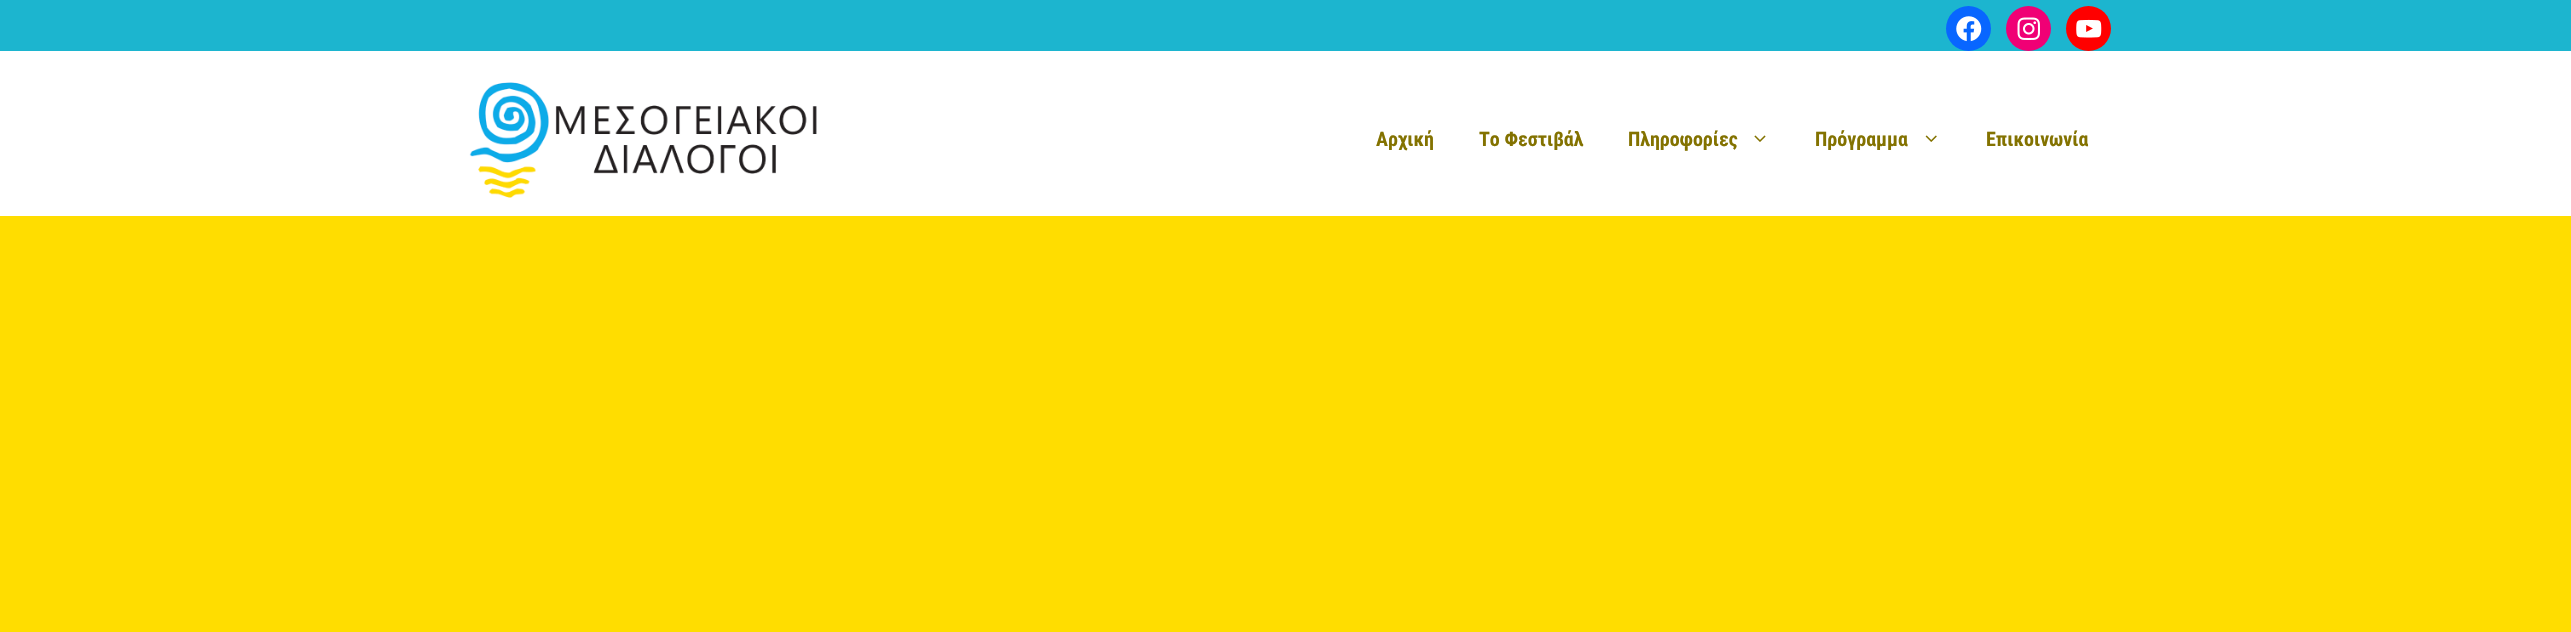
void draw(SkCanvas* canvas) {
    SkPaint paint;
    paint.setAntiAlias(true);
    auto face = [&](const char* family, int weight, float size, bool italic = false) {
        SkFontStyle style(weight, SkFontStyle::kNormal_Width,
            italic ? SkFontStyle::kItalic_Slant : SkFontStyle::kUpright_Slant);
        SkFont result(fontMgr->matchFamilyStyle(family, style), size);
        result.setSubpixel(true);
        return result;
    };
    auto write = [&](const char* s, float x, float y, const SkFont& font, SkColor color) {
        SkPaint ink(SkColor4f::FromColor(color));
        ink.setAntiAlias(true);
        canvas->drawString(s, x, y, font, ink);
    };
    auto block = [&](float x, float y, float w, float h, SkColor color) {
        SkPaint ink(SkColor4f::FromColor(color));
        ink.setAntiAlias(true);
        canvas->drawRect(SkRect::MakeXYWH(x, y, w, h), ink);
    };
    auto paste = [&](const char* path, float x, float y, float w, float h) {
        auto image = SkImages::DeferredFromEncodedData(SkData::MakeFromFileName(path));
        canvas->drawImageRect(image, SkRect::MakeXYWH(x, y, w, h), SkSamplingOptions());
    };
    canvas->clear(SK_ColorWHITE);
    block(0, 0, 2571, 51, SkColorSetRGB(28, 181, 207));
    paint.setColor(SkColorSetRGB(8, 102, 255));
    canvas->drawCircle(1968.5f, 28.5f, 22.5f, paint);
    paste("pic1.png", 1956, 16, 26, 26);
    paint.setColor(SkColorSetRGB(240, 0, 117));
    canvas->drawCircle(2028.5f, 28.5f, 22.5f, paint);
    paste("pic2.png", 2017, 17, 23, 23);
    paint.setColor(SkColorSetRGB(255, 0, 0));
    canvas->drawCircle(2088.5f, 28.5f, 22.5f, paint);
    paste("pic3.png", 2076, 19, 26, 19);
    paste("pic4.png", 469, 82, 348, 116);
    auto kFont1 = face("Roboto Condensed", 700, 20);
    write("Αρχική", 1376, 146, kFont1, SkColorSetRGB(131, 114, 0));
    write("Το Φεστιβάλ", 1479, 146, kFont1, SkColorSetRGB(131, 114, 0));
    write("Πληροφορίες", 1628, 146, kFont1, SkColorSetRGB(131, 114, 0));
    paste("pic5.png", 1754, 135, 12, 7);
    write("Πρόγραμμα", 1815, 146, kFont1, SkColorSetRGB(131, 114, 0));
    paste("pic6.png", 1925, 135, 12, 7);
    write("Επικοινωνία", 1986, 146, kFont1, SkColorSetRGB(131, 114, 0));
    block(0, 216, 2571, 416, SkColorSetRGB(255, 221, 0));
}
